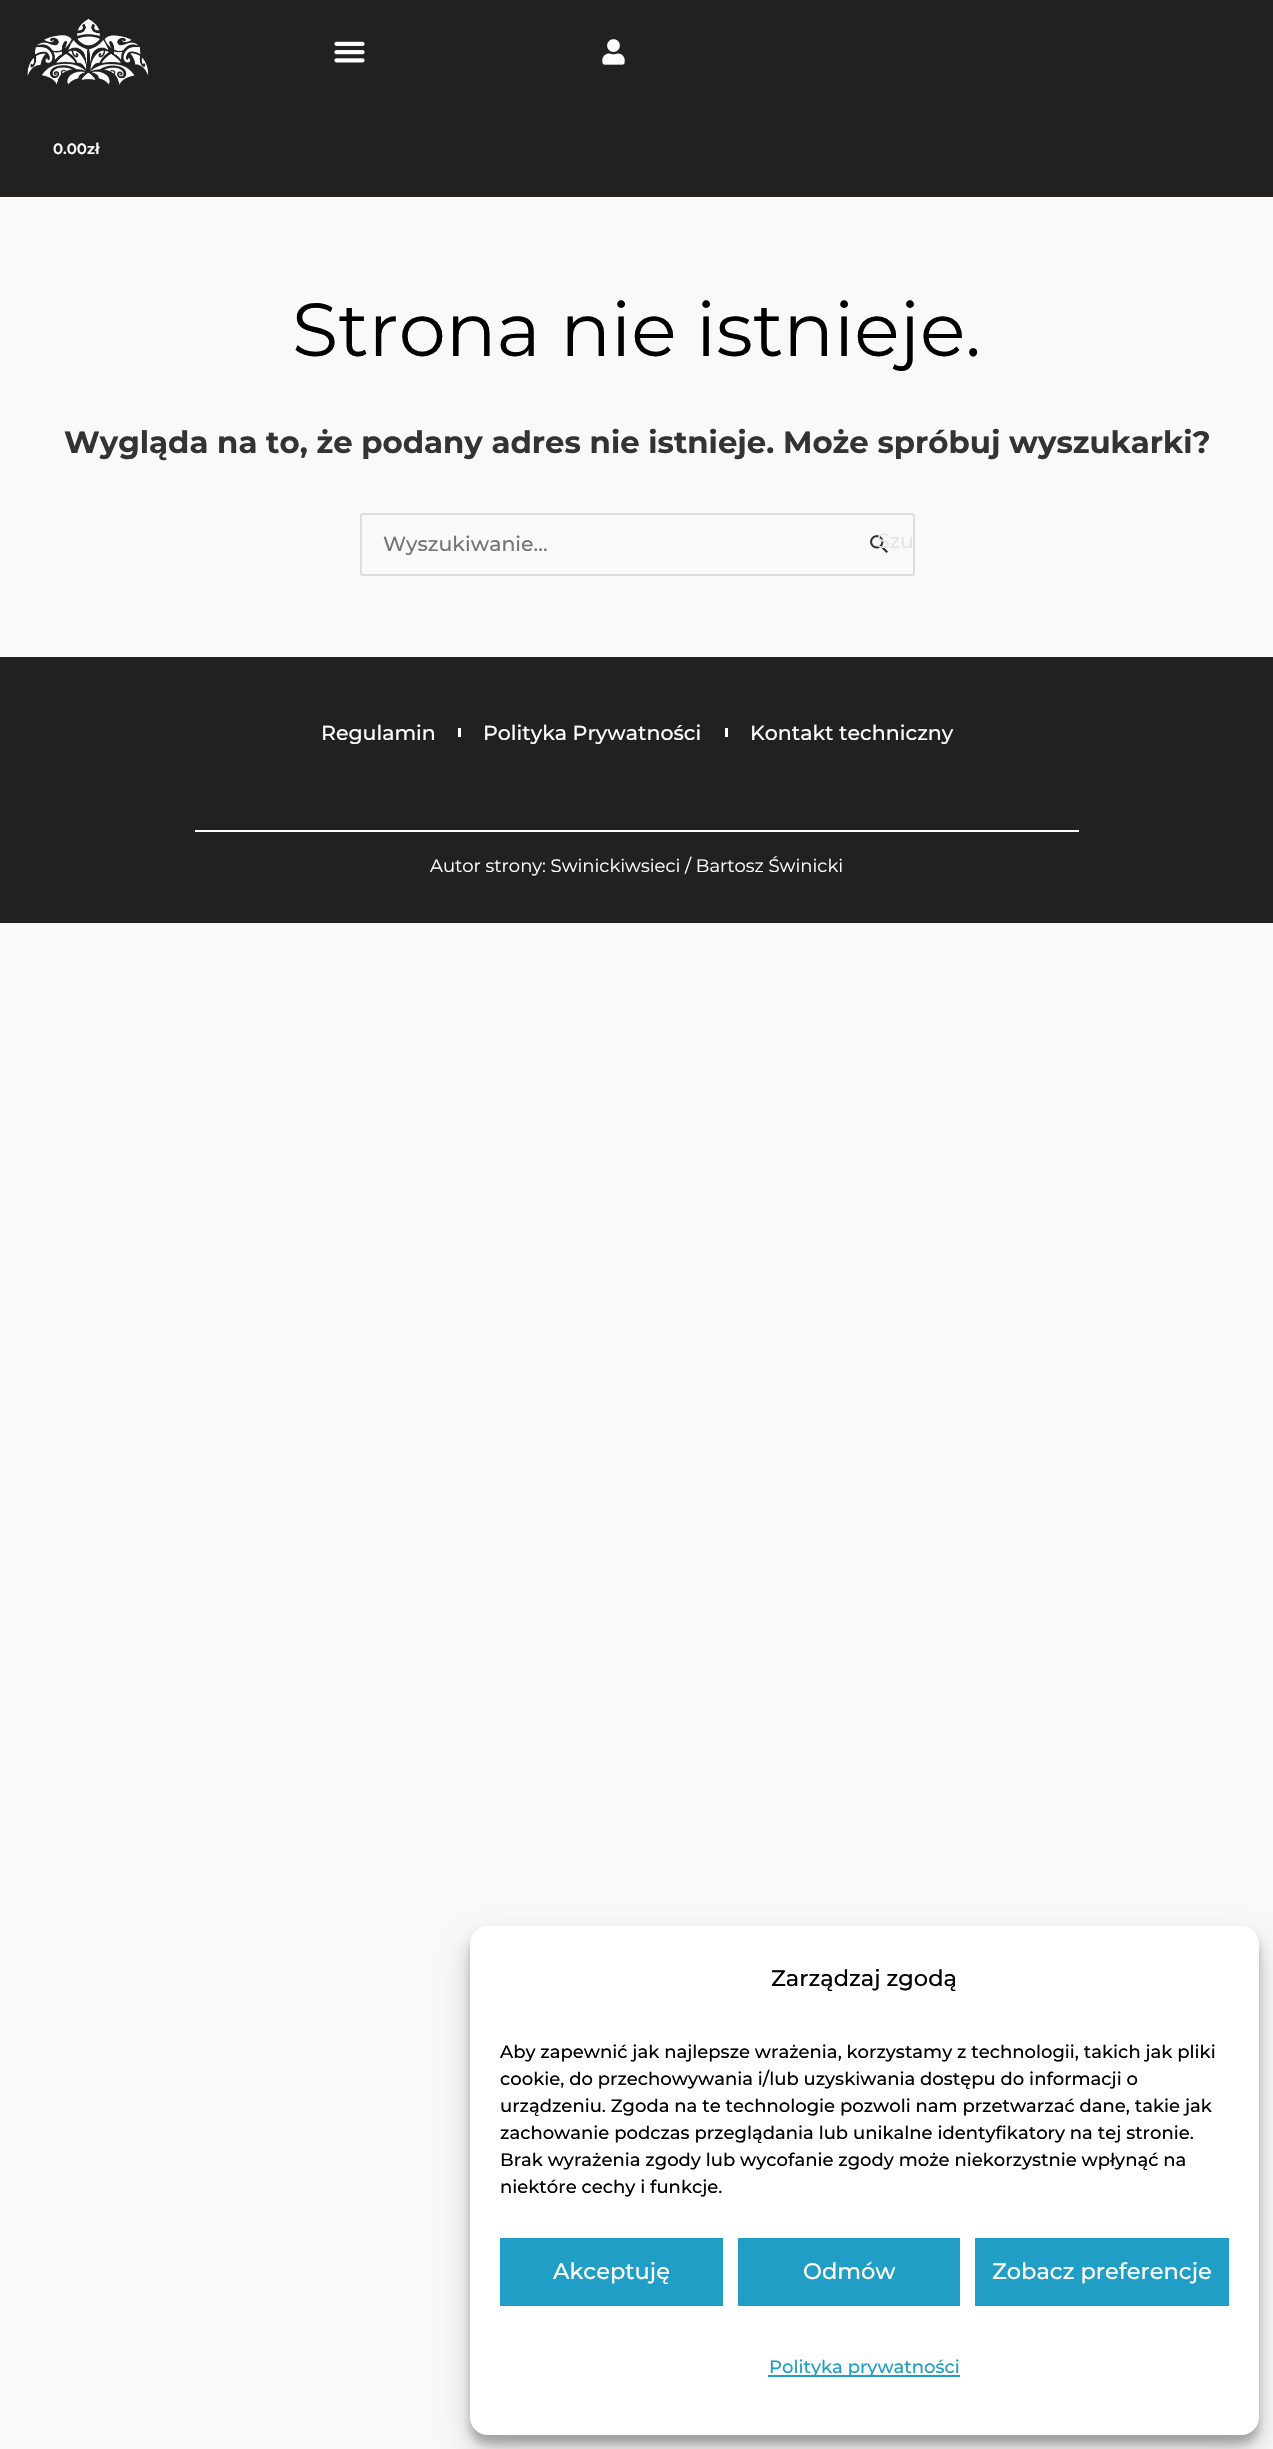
void draw(SkCanvas* canvas) {
    SkPaint paint;
    paint.setAntiAlias(true);
    auto face = [&](const char* family, int weight, float size, bool italic = false) {
        SkFontStyle style(weight, SkFontStyle::kNormal_Width,
            italic ? SkFontStyle::kItalic_Slant : SkFontStyle::kUpright_Slant);
        SkFont result(fontMgr->matchFamilyStyle(family, style), size);
        result.setSubpixel(true);
        return result;
    };
    auto write = [&](const char* s, float x, float y, const SkFont& font, SkColor color) {
        SkPaint ink(SkColor4f::FromColor(color));
        ink.setAntiAlias(true);
        canvas->drawString(s, x, y, font, ink);
    };
    auto block = [&](float x, float y, float w, float h, SkColor color) {
        SkPaint ink(SkColor4f::FromColor(color));
        ink.setAntiAlias(true);
        canvas->drawRect(SkRect::MakeXYWH(x, y, w, h), ink);
    };
    auto card = [&](float x, float y, float w, float h, float radius, SkColor color) {
        SkPaint ink(SkColor4f::FromColor(color));
        ink.setAntiAlias(true);
        canvas->drawRoundRect(SkRect::MakeXYWH(x, y, w, h), radius, radius, ink);
    };
    auto paste = [&](const char* path, float x, float y, float w, float h) {
        auto image = SkImages::DeferredFromEncodedData(SkData::MakeFromFileName(path));
        canvas->drawImageRect(image, SkRect::MakeXYWH(x, y, w, h), SkSamplingOptions());
    };
    canvas->clear(SkColorSetRGB(249, 249, 249));
    block(0, 0, 1273, 197, SkColorSetRGB(34, 33, 32));
    paste("pic1.png", 27, 19, 122, 66);
    paste("pic2.png", 334, 41, 31, 22);
    paste("pic3.png", 602, 39, 23, 26);
    auto kFont1 = face("Montserrat", 600, 15);
    write("0.00zł", 53, 154, kFont1, SK_ColorWHITE);
    auto kFont2 = face("Montserrat", 400, 75);
    write("Strona nie istnieje.", 292, 356, kFont2, SK_ColorBLACK);
    auto kFont3 = face("Montserrat", 700, 30.8f);
    write("Wygląda na to, że podany adres nie istnieje. Może spróbuj wyszukarki?", 64, 453, kFont3, SkColorSetRGB(51, 51, 51));
    paint.setStyle(SkPaint::kStroke_Style);
    paint.setStrokeWidth(2);
    paint.setColor(SkColorSetRGB(221, 221, 221));
    canvas->drawRoundRect(SkRect::MakeXYWH(361, 514, 553, 61), 2, 2, paint);
    auto kFont4 = face("Montserrat", 500, 20.5f);
    write("Wyszukiwanie…", 383, 551, kFont4, SkColorSetRGB(117, 117, 117));
    paste("pic4.png", 870, 535, 18, 18);
    auto kFont5 = face("Montserrat", 400, 20.5f);
    write("Szu", 877, 548, kFont5, SkColorSetRGB(226, 226, 226));
    block(0, 657, 1273, 266, SkColorSetRGB(34, 33, 32));
    write("Regulamin", 321, 740, kFont4, SK_ColorWHITE);
    block(458, 728, 3, 9, SK_ColorWHITE);
    write("Polityka Prywatności", 483, 740, kFont4, SK_ColorWHITE);
    block(725, 728, 3, 9, SK_ColorWHITE);
    write("Kontakt techniczny", 750, 740, kFont4, SK_ColorWHITE);
    block(195, 830, 884, 2, SK_ColorWHITE);
    auto kFont6 = face("Montserrat", 400, 18);
    write("Autor strony: Swinickiwsieci / Bartosz Świnicki", 430, 872, kFont6, SK_ColorWHITE);
    paint.setStyle(SkPaint::kFill_Style);
    paint.setColor(SkColorSetARGB(59, 0, 0, 0));
    paint.setMaskFilter(SkMaskFilter::MakeBlur(kNormal_SkBlurStyle, 4.5f));
    canvas->drawRoundRect(SkRect::MakeXYWH(470, 1935, 789, 509), 18, 18, paint);
    paint.setMaskFilter(nullptr);
    paint.setColor(SkColorSetARGB(48, 0, 0, 0));
    paint.setMaskFilter(SkMaskFilter::MakeBlur(kNormal_SkBlurStyle, 15));
    canvas->drawRoundRect(SkRect::MakeXYWH(470, 1941, 789, 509), 18, 18, paint);
    paint.setMaskFilter(nullptr);
    card(470, 1926, 789, 509, 18, SK_ColorWHITE);
    auto kFont7 = face("Montserrat", 500, 22.5f);
    write("Zarządzaj zgodą", 771, 1986, kFont7, SK_ColorBLACK);
    auto kFont8 = face("Montserrat", 500, 18);
    write("Aby zapewnić jak najlepsze wrażenia, korzystamy z technologii, takich jak pliki", 500, 2058, kFont8, SK_ColorBLACK);
    write("cookie, do przechowywania i/lub uzyskiwania dostępu do informacji o", 500, 2085, kFont8, SK_ColorBLACK);
    write("urządzeniu. Zgoda na te technologie pozwoli nam przetwarzać dane, takie jak", 500, 2112, kFont8, SK_ColorBLACK);
    write("zachowanie podczas przeglądania lub unikalne identyfikatory na tej stronie.", 500, 2139, kFont8, SK_ColorBLACK);
    write("Brak wyrażenia zgody lub wycofanie zgody może niekorzystnie wpłynąć na", 500, 2166, kFont8, SK_ColorBLACK);
    write("niektóre cechy i funkcje.", 500, 2193, kFont8, SK_ColorBLACK);
    block(500, 2238, 223, 68, SkColorSetRGB(33, 158, 197));
    write("Akceptuję", 553, 2279, kFont7, SK_ColorWHITE);
    block(738, 2238, 222, 68, SkColorSetRGB(33, 158, 197));
    write("Odmów", 803, 2279, kFont7, SK_ColorWHITE);
    block(975, 2238, 254, 68, SkColorSetRGB(33, 158, 197));
    write("Zobacz preferencje", 992, 2279, kFont7, SK_ColorWHITE);
    block(768, 2375, 192, 2, SkColorSetRGB(33, 158, 197));
    write("Polityka prywatności", 769, 2373, kFont8, SkColorSetRGB(33, 158, 197));
}
